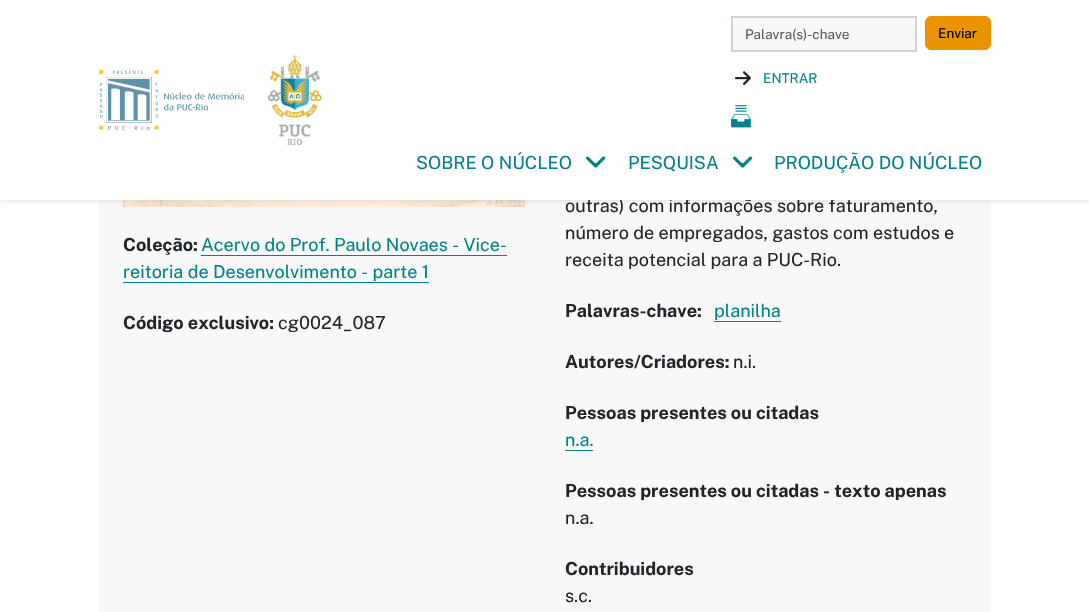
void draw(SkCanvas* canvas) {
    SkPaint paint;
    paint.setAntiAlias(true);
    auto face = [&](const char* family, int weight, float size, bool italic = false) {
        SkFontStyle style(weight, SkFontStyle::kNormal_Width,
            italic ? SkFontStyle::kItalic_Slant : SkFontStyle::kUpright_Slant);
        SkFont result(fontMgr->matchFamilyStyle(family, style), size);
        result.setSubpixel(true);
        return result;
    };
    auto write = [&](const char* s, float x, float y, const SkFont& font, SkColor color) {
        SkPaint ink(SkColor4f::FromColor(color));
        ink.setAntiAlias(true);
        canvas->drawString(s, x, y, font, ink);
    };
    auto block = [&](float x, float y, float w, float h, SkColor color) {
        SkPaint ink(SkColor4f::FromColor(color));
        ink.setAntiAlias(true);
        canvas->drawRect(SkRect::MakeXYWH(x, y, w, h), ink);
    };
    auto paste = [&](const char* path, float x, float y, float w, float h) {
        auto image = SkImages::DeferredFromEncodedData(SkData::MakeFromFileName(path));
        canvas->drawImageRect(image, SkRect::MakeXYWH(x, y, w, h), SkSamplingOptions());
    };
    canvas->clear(SK_ColorWHITE);
    block(99, 200, 892, 412, SkColorSetRGB(248, 248, 248));
    paste("pic6.png", 123, 200, 402, 7);
    paint.setColor(SkColorSetARGB(18, 0, 0, 0));
    paint.setMaskFilter(SkMaskFilter::MakeBlur(kNormal_SkBlurStyle, 2));
    canvas->drawRect(SkRect::MakeXYWH(0, 2, 1089, 200), paint);
    paint.setMaskFilter(nullptr);
    auto kFont1 = face("Public Sans", 400, 18);
    write("outras) com informações sobre faturamento,", 565, 212, kFont1, SkColorSetRGB(33, 37, 41));
    block(0, 0, 1089, 200, SK_ColorWHITE);
    paste("pic1.png", 99, 70, 145, 60);
    paste("pic2.png", 268, 55, 54, 90);
    paint.setColor(SkColorSetRGB(248, 248, 248));
    canvas->drawRect(SkRect::MakeXYWH(732, 17, 184, 34), paint);
    paint.setStyle(SkPaint::kStroke_Style);
    paint.setStrokeWidth(2);
    paint.setColor(SkColorSetRGB(206, 212, 218));
    canvas->drawRect(SkRect::MakeXYWH(732, 17, 184, 34), paint);
    auto kFont2 = face("Public Sans", 400, 13.5f);
    write("Palavra(s)-chave", 745, 39, kFont2, SkColorSetRGB(87, 90, 93));
    paint.setStyle(SkPaint::kFill_Style);
    paint.setColor(SkColorSetRGB(234, 146, 0));
    canvas->drawRoundRect(SkRect::MakeXYWH(925.5f, 16.5f, 65, 33), 5.5f, 5.5f, paint);
    paint.setStyle(SkPaint::kStroke_Style);
    paint.setStrokeWidth(1);
    canvas->drawRoundRect(SkRect::MakeXYWH(925.5f, 16.5f, 65, 33), 5.5f, 5.5f, paint);
    write("Enviar", 938, 38, kFont2, SK_ColorBLACK);
    paste("pic3.png", 735, 71, 16, 14);
    write("ENTRAR", 763, 83, kFont2, SkColorSetRGB(0, 129, 139));
    paste("pic4.png", 731, 105, 20, 23);
    write("SOBRE O NÚCLEO", 416, 169, kFont1, SkColorSetRGB(0, 129, 139));
    paste("pic5.png", 586, 156, 20, 12);
    write("PESQUISA", 628, 169, kFont1, SkColorSetRGB(0, 129, 139));
    paste("pic5.png", 733, 156, 20, 12);
    write("PRODUÇÃO DO NÚCLEO", 774, 169, kFont1, SkColorSetRGB(0, 129, 139));
    auto kFont3 = face("Public Sans", 700, 18);
    write("Coleção:", 123, 251, kFont3, SkColorSetRGB(33, 37, 41));
    write("Acervo do Prof. Paulo Novaes - Vice-", 201, 251, kFont1, SkColorSetRGB(0, 129, 139));
    block(201, 255, 306, 1, SkColorSetRGB(0, 129, 139));
    write("reitoria de Desenvolvimento - parte 1", 123, 278, kFont1, SkColorSetRGB(0, 129, 139));
    block(123, 282, 306, 1, SkColorSetRGB(0, 129, 139));
    write("Código exclusivo:", 123, 329, kFont3, SkColorSetRGB(33, 37, 41));
    write("cg0024_087", 278, 329, kFont1, SkColorSetRGB(33, 37, 41));
    write("número de empregados, gastos com estudos e", 565, 239, kFont1, SkColorSetRGB(33, 37, 41));
    write("receita potencial para a PUC-Rio.", 565, 266, kFont1, SkColorSetRGB(33, 37, 41));
    write("Palavras-chave:", 565, 317, kFont3, SkColorSetRGB(33, 37, 41));
    write("planilha", 714, 317, kFont1, SkColorSetRGB(0, 129, 139));
    block(714, 321, 67, 1, SkColorSetRGB(0, 129, 139));
    write("Autores/Criadores:", 565, 368, kFont3, SkColorSetRGB(33, 37, 41));
    write("n.i.", 733, 368, kFont1, SkColorSetRGB(33, 37, 41));
    write("Pessoas presentes ou citadas", 565, 419, kFont3, SkColorSetRGB(33, 37, 41));
    write("n.a.", 565, 446, kFont1, SkColorSetRGB(0, 129, 139));
    block(565, 450, 28, 1, SkColorSetRGB(0, 129, 139));
    write("Pessoas presentes ou citadas - texto apenas", 565, 497, kFont3, SkColorSetRGB(33, 37, 41));
    write("n.a.", 565, 524, kFont1, SkColorSetRGB(33, 37, 41));
    write("Contribuidores", 565, 575, kFont3, SkColorSetRGB(33, 37, 41));
    write("s.c.", 565, 602, kFont1, SkColorSetRGB(33, 37, 41));
}
